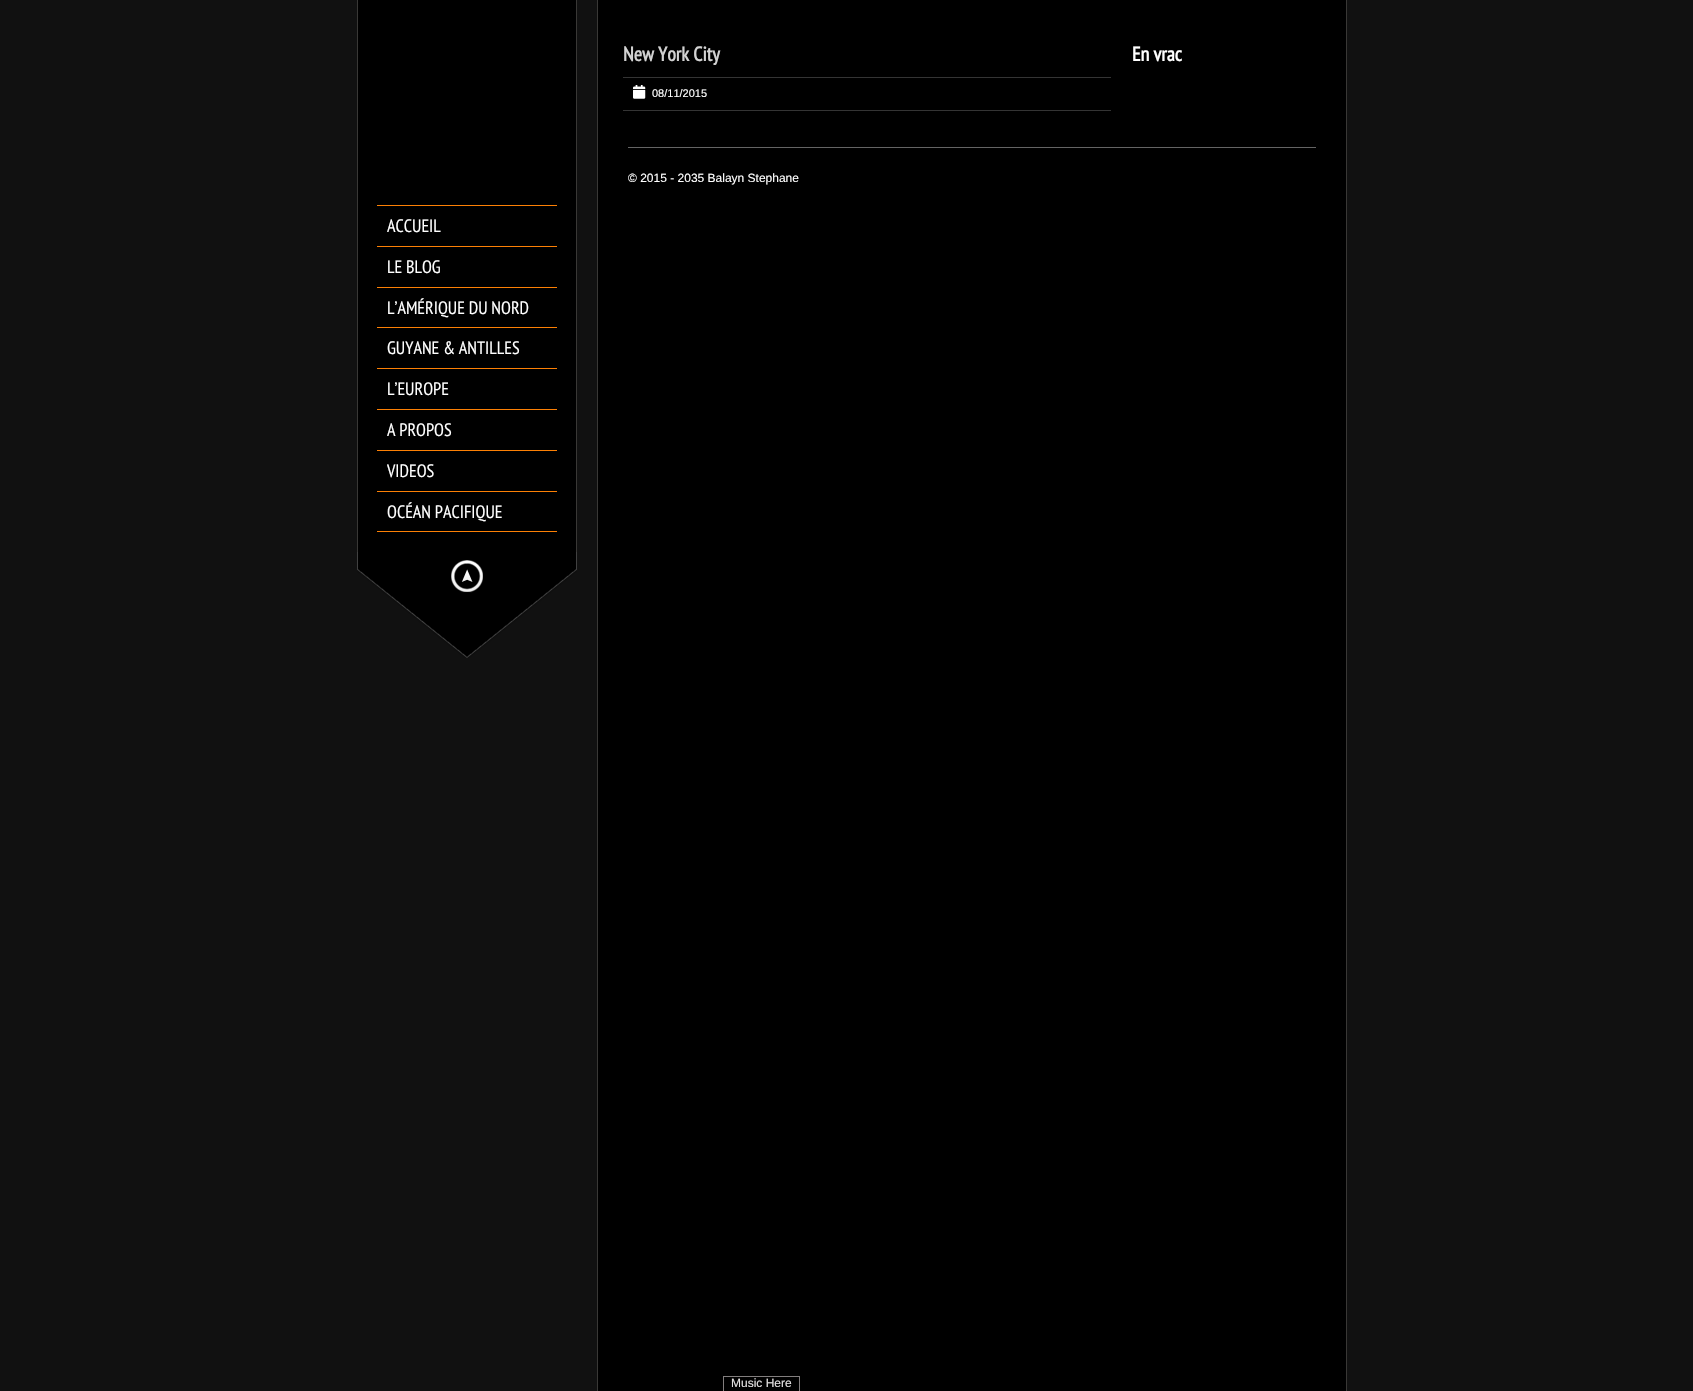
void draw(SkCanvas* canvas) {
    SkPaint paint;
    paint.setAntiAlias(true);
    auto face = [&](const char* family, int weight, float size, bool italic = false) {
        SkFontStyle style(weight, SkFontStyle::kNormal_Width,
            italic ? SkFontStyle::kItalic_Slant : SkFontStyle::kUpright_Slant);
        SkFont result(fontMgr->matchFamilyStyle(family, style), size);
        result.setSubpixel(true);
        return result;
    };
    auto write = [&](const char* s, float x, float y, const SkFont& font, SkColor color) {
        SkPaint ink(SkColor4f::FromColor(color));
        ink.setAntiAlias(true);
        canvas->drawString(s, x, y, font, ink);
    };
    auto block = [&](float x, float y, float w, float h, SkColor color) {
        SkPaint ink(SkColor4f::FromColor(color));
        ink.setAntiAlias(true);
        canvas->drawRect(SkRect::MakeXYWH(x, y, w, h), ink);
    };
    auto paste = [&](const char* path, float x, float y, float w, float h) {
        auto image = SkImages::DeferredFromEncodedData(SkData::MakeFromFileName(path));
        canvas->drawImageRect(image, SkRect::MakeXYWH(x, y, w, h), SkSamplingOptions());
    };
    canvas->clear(SkColorSetRGB(17, 17, 17));
    block(598, 0, 748, 1391, SK_ColorBLACK);
    block(1346, 0, 1, 1391, SkColorSetRGB(57, 56, 54));
    block(597, 0, 1, 1391, SkColorSetRGB(57, 56, 54));
    auto kFont1 = face("PT Sans Narrow", 700, 20);
    write("New York City", 623, 61, kFont1, SkColorSetRGB(210, 210, 210));
    block(623, 77, 488, 1, SkColorSetRGB(52, 52, 52));
    block(623, 110, 488, 1, SkColorSetRGB(52, 52, 52));
    paste("pic1.png", 633, 85, 13, 14);
    auto kFont2 = face("Liberation Sans", 400, 11);
    write("08/11/2015", 652, 97, kFont2, SK_ColorWHITE);
    write("En vrac", 1132, 61, kFont1, SK_ColorWHITE);
    block(628, 147, 688, 1, SkColorSetRGB(100, 100, 100));
    auto kFont3 = face("Liberation Sans", 400, 12);
    write("© 2015 - 2035 Balayn Stephane", 628, 182, kFont3, SK_ColorWHITE);
    block(358, 0, 218, 552, SK_ColorBLACK);
    block(576, 0, 1, 552, SkColorSetRGB(57, 56, 54));
    block(357, 0, 1, 552, SkColorSetRGB(57, 56, 54));
    block(377, 205, 180, 1, SkColorSetRGB(252, 128, 5));
    block(377, 246, 180, 1, SkColorSetRGB(252, 128, 5));
    auto kFont4 = face("PT Sans Narrow", 400, 18);
    write("ACCUEIL", 387, 232, kFont4, SK_ColorWHITE);
    block(377, 287, 180, 1, SkColorSetRGB(252, 128, 5));
    write("LE BLOG", 387, 273, kFont4, SK_ColorWHITE);
    block(377, 327, 180, 1, SkColorSetRGB(252, 128, 5));
    write("L’AMÉRIQUE DU NORD", 387, 314, kFont4, SK_ColorWHITE);
    block(377, 368, 180, 1, SkColorSetRGB(252, 128, 5));
    write("GUYANE & ANTILLES", 387, 354, kFont4, SK_ColorWHITE);
    block(377, 409, 180, 1, SkColorSetRGB(252, 128, 5));
    write("L’EUROPE", 387, 395, kFont4, SK_ColorWHITE);
    block(377, 450, 180, 1, SkColorSetRGB(252, 128, 5));
    write("A PROPOS", 387, 436, kFont4, SK_ColorWHITE);
    block(377, 491, 180, 1, SkColorSetRGB(252, 128, 5));
    write("VIDEOS", 387, 477, kFont4, SK_ColorWHITE);
    block(377, 531, 180, 1, SkColorSetRGB(252, 128, 5));
    write("OCÉAN PACIFIQUE", 387, 518, kFont4, SK_ColorWHITE);
    paste("pic2.png", 357, 552, 220, 106);
    paste("pic3.png", 451, 560, 32, 33);
    block(723, 1376, 77, 1, SkColorSetRGB(130, 126, 126));
    block(799, 1376, 1, 15, SkColorSetRGB(130, 126, 126));
    block(723, 1376, 1, 15, SkColorSetRGB(130, 126, 126));
    write("Music Here", 731, 1387, kFont3, SkColorSetRGB(226, 224, 224));
}
